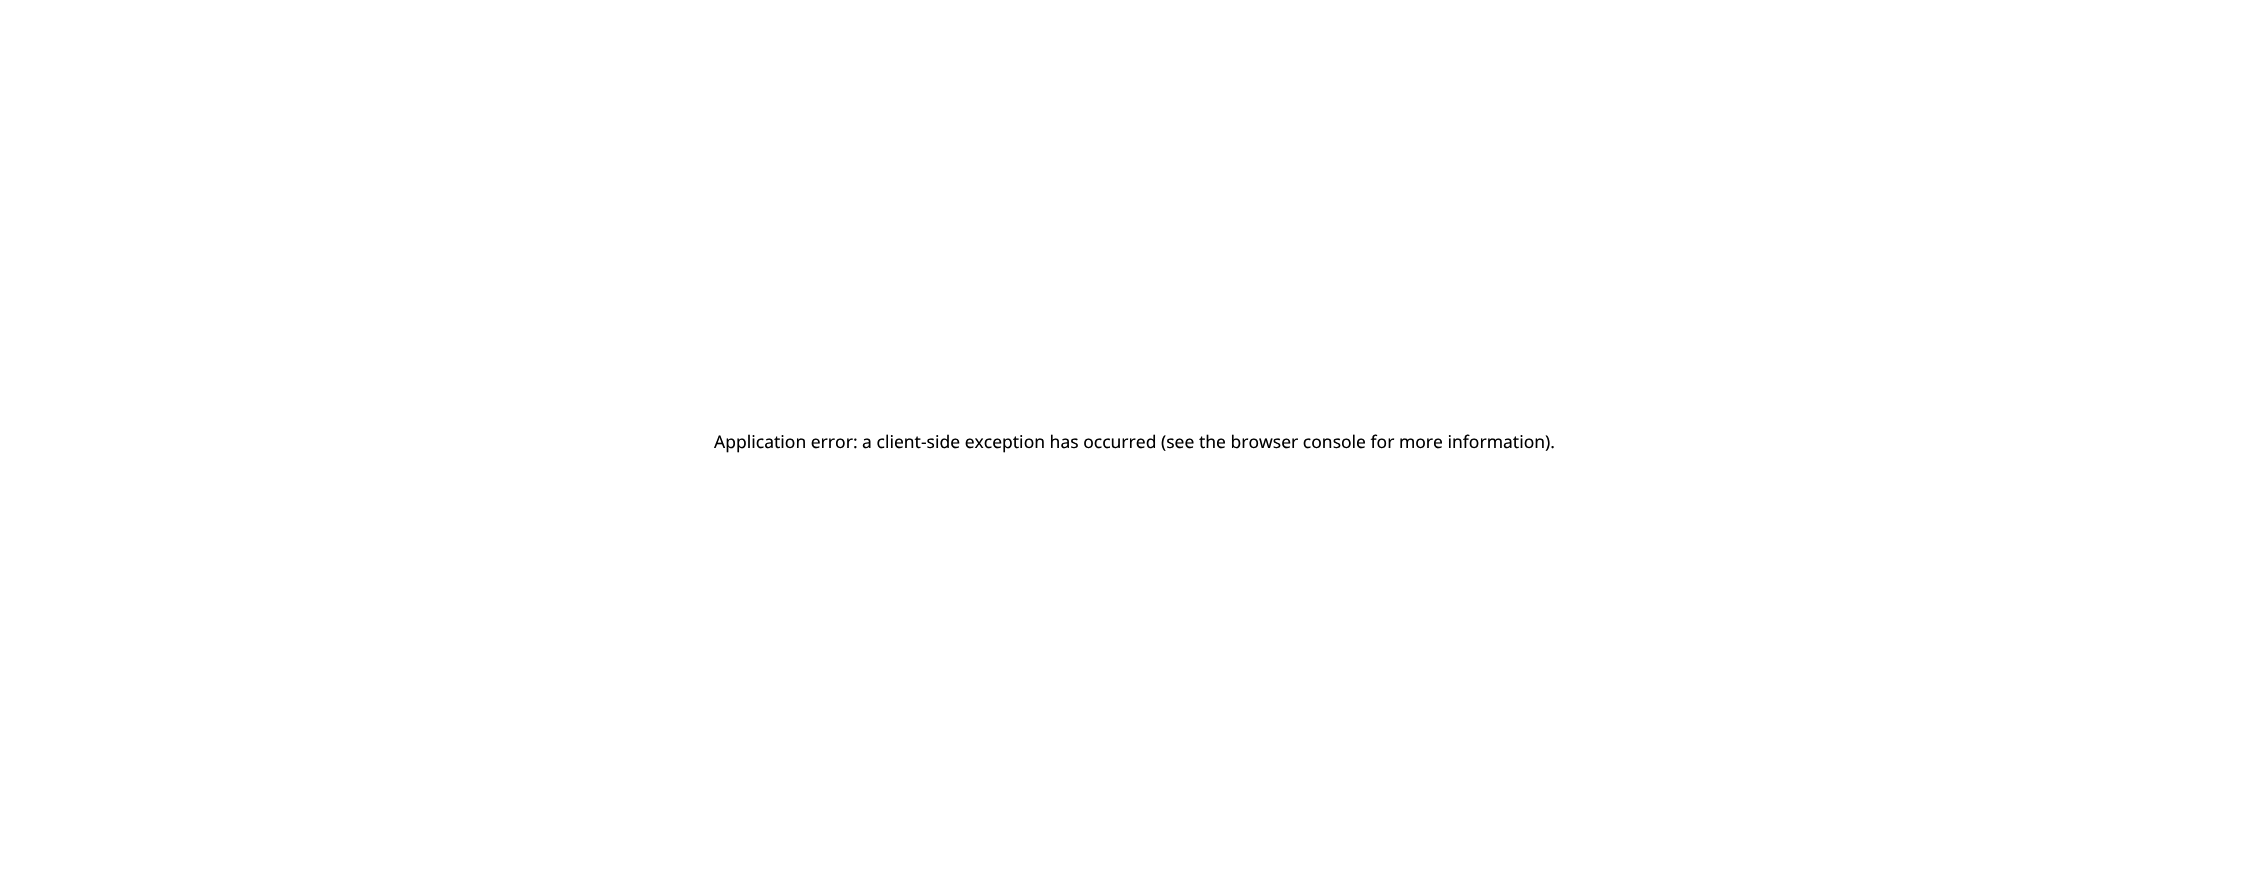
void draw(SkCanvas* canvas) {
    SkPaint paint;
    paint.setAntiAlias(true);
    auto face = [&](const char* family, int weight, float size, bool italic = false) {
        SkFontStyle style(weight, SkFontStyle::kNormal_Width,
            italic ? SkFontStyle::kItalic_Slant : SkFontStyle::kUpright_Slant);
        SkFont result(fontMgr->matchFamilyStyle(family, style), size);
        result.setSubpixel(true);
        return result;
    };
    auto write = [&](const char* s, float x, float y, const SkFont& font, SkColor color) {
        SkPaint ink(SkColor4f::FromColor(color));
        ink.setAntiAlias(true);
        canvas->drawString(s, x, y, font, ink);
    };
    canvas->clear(SK_ColorWHITE);
    auto kFont1 = face("Noto Sans", 400, 17.5f);
    write("Application error: a client-side exception has occurred (see the browser console for more information).", 714, 448, kFont1, SK_ColorBLACK);
}
